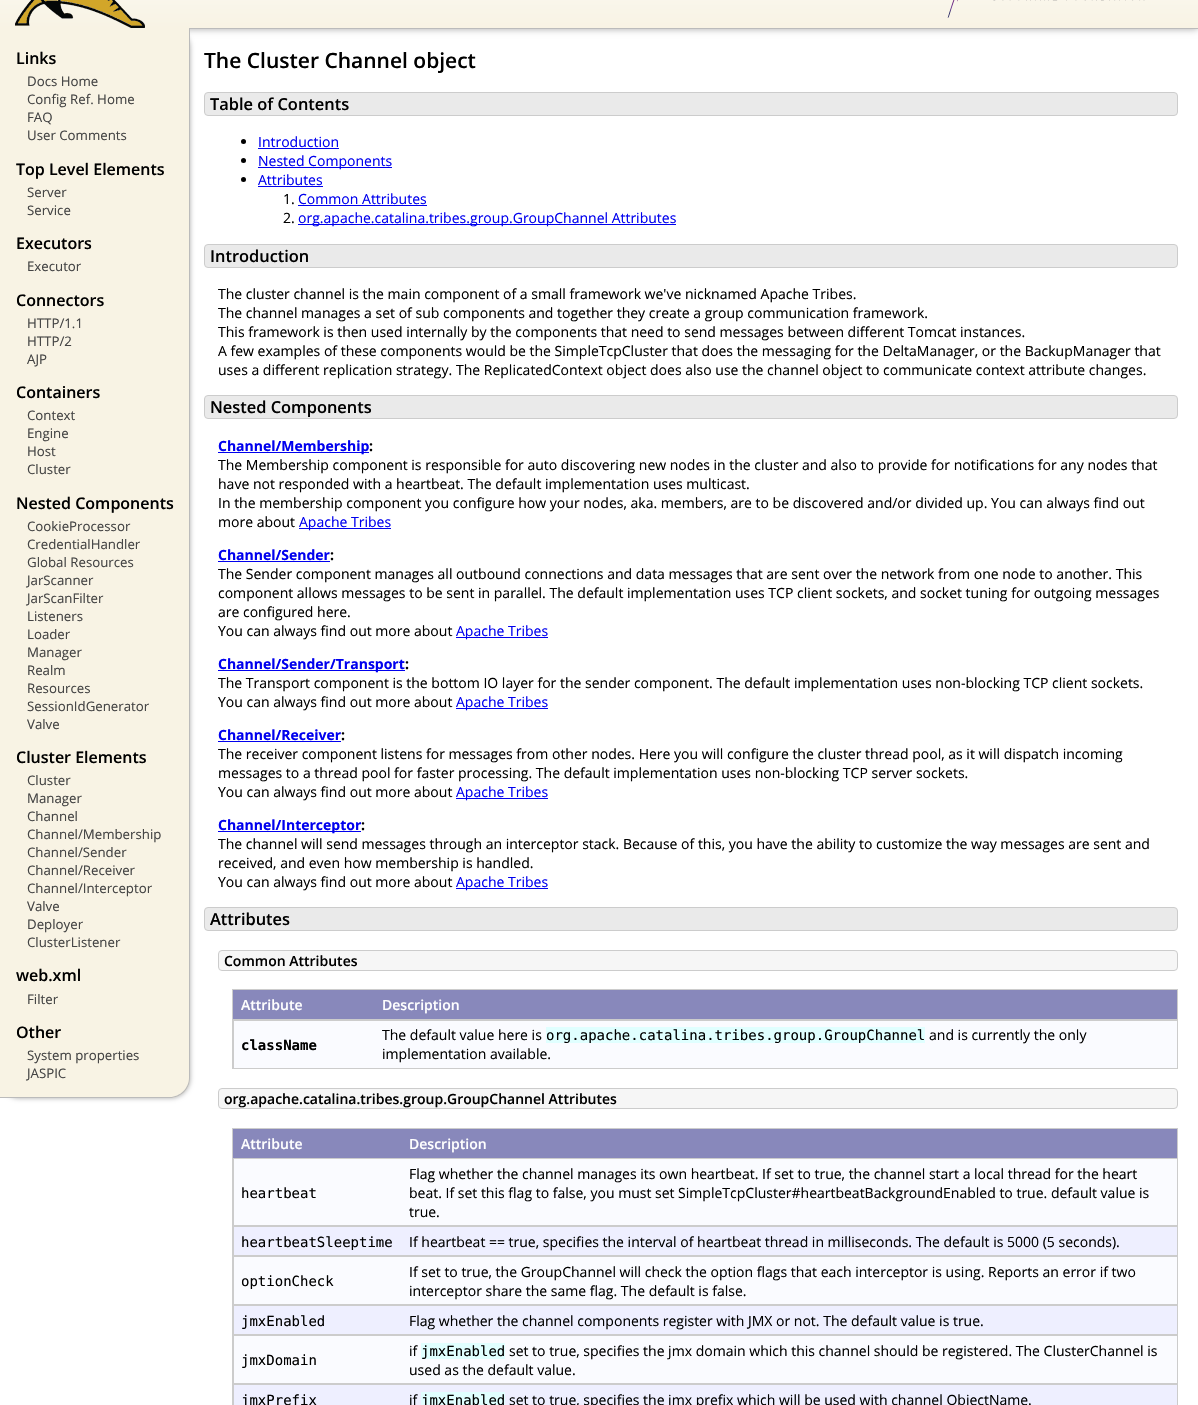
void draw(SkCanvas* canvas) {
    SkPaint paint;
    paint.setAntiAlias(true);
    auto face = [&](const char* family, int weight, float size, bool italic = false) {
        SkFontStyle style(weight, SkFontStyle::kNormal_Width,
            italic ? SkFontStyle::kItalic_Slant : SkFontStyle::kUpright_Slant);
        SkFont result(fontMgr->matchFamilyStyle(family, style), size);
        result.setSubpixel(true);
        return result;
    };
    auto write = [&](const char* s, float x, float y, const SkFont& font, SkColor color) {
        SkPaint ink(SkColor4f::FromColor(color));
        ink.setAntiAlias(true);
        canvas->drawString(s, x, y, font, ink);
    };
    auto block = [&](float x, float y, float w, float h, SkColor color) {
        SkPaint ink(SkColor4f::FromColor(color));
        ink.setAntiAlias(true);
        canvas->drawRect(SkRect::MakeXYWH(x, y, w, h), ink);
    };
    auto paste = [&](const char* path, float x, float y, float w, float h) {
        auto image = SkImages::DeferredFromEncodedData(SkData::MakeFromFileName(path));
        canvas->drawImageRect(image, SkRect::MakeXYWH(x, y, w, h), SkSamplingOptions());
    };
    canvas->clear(SK_ColorWHITE);
    paint.setColor(SkColorSetRGB(170, 170, 170));
    paint.setMaskFilter(SkMaskFilter::MakeBlur(kNormal_SkBlurStyle, 3.5f));
    canvas->drawRect(SkRect::MakeXYWH(0, -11, 1198, 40), paint);
    paint.setMaskFilter(nullptr);
    block(190, 28, 1008, 1, SkColorSetRGB(187, 187, 187));
    paint.setMaskFilter(SkMaskFilter::MakeBlur(kNormal_SkBlurStyle, 2.5f));
    canvas->drawRoundRect(SkRect::MakeXYWH(0, 28, 190, 1070), 20, 20, paint);
    paint.setMaskFilter(nullptr);
    {
        const SkColor colors[] = {SK_ColorWHITE, SkColorSetRGB(248, 243, 228)};
        const float stops[] = {0, 1};
        const SkPoint ends[] = {{599, -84}, {599, 28}};
        paint.setShader(SkGradientShader::MakeLinear(ends, colors, stops, 2, SkTileMode::kClamp));
        paint.setAlpha(255);
    }
    canvas->drawRect(SkRect::MakeXYWH(0, 0, 1198, 28), paint);
    paste("pic1.png", 15, 0, 130, 28);
    paste("pic2.png", 947, 0, 198, 18);
    paint.setShader(nullptr);
    paint.setColor(SkColorSetRGB(248, 243, 228));
    canvas->drawPath(SkPathBuilder().moveTo(0, 28).lineTo(190, 28).lineTo(190, 1078).cubicTo(190, 1089, 181, 1098, 170, 1098).lineTo(0, 1098).close().detach(), paint);
    paint.setColor(SkColorSetRGB(187, 187, 187));
    canvas->drawPath(SkPathBuilder(SkPathFillType::kEvenOdd).moveTo(0, 28).lineTo(190, 28).lineTo(190, 1078).cubicTo(190, 1089, 181, 1098, 170, 1098).lineTo(0, 1098).close().moveTo(0, 28).lineTo(189, 28).lineTo(189, 1078).cubicTo(189, 1088, 180, 1097, 170, 1097).lineTo(0, 1097).close().detach(), paint);
    auto kFont1 = face("Open Sans", 600, 16);
    write("Links", 16, 64, kFont1, SK_ColorBLACK);
    auto kFont2 = face("Open Sans", 400, 13.25f);
    write("Docs Home", 27, 86, kFont2, SkColorSetRGB(68, 68, 68));
    write("Config Ref. Home", 27, 104, kFont2, SkColorSetRGB(68, 68, 68));
    write("FAQ", 27, 122, kFont2, SkColorSetRGB(68, 68, 68));
    write("User Comments", 27, 140, kFont2, SkColorSetRGB(68, 68, 68));
    write("Top Level Elements", 16, 175, kFont1, SK_ColorBLACK);
    write("Server", 27, 197, kFont2, SkColorSetRGB(68, 68, 68));
    write("Service", 27, 215, kFont2, SkColorSetRGB(68, 68, 68));
    write("Executors", 16, 249, kFont1, SK_ColorBLACK);
    write("Executor", 27, 271, kFont2, SkColorSetRGB(68, 68, 68));
    write("Connectors", 16, 306, kFont1, SK_ColorBLACK);
    write("HTTP/1.1", 27, 328, kFont2, SkColorSetRGB(68, 68, 68));
    write("HTTP/2", 27, 346, kFont2, SkColorSetRGB(68, 68, 68));
    write("AJP", 27, 364, kFont2, SkColorSetRGB(68, 68, 68));
    write("Containers", 16, 398, kFont1, SK_ColorBLACK);
    write("Context", 27, 420, kFont2, SkColorSetRGB(68, 68, 68));
    write("Engine", 27, 438, kFont2, SkColorSetRGB(68, 68, 68));
    write("Host", 27, 456, kFont2, SkColorSetRGB(68, 68, 68));
    write("Cluster", 27, 474, kFont2, SkColorSetRGB(68, 68, 68));
    write("Nested Components", 16, 509, kFont1, SK_ColorBLACK);
    write("CookieProcessor", 27, 531, kFont2, SkColorSetRGB(68, 68, 68));
    write("CredentialHandler", 27, 549, kFont2, SkColorSetRGB(68, 68, 68));
    write("Global Resources", 27, 567, kFont2, SkColorSetRGB(68, 68, 68));
    write("JarScanner", 27, 585, kFont2, SkColorSetRGB(68, 68, 68));
    write("JarScanFilter", 27, 603, kFont2, SkColorSetRGB(68, 68, 68));
    write("Listeners", 27, 621, kFont2, SkColorSetRGB(68, 68, 68));
    write("Loader", 27, 639, kFont2, SkColorSetRGB(68, 68, 68));
    write("Manager", 27, 657, kFont2, SkColorSetRGB(68, 68, 68));
    write("Realm", 27, 675, kFont2, SkColorSetRGB(68, 68, 68));
    write("Resources", 27, 693, kFont2, SkColorSetRGB(68, 68, 68));
    write("SessionIdGenerator", 27, 711, kFont2, SkColorSetRGB(68, 68, 68));
    write("Valve", 27, 729, kFont2, SkColorSetRGB(68, 68, 68));
    write("Cluster Elements", 16, 763, kFont1, SK_ColorBLACK);
    write("Cluster", 27, 785, kFont2, SkColorSetRGB(68, 68, 68));
    write("Manager", 27, 803, kFont2, SkColorSetRGB(68, 68, 68));
    write("Channel", 27, 821, kFont2, SkColorSetRGB(68, 68, 68));
    write("Channel/Membership", 27, 839, kFont2, SkColorSetRGB(68, 68, 68));
    write("Channel/Sender", 27, 857, kFont2, SkColorSetRGB(68, 68, 68));
    write("Channel/Receiver", 27, 875, kFont2, SkColorSetRGB(68, 68, 68));
    write("Channel/Interceptor", 27, 893, kFont2, SkColorSetRGB(68, 68, 68));
    write("Valve", 27, 911, kFont2, SkColorSetRGB(68, 68, 68));
    write("Deployer", 27, 929, kFont2, SkColorSetRGB(68, 68, 68));
    write("ClusterListener", 27, 947, kFont2, SkColorSetRGB(68, 68, 68));
    write("web.xml", 16, 981, kFont1, SK_ColorBLACK);
    write("Filter", 27, 1004, kFont2, SkColorSetRGB(68, 68, 68));
    write("Other", 16, 1038, kFont1, SK_ColorBLACK);
    write("System properties", 27, 1060, kFont2, SkColorSetRGB(68, 68, 68));
    write("JASPIC", 27, 1078, kFont2, SkColorSetRGB(68, 68, 68));
    auto kFont3 = face("Open Sans", 600, 21);
    write("The Cluster Channel object", 204, 68, kFont3, SK_ColorBLACK);
    paint.setColor(SkColorSetRGB(234, 234, 234));
    canvas->drawRoundRect(SkRect::MakeXYWH(204.5f, 92.5f, 973, 23), 3.5f, 3.5f, paint);
    paint.setStyle(SkPaint::kStroke_Style);
    paint.setStrokeWidth(1);
    paint.setColor(SkColorSetRGB(204, 204, 204));
    canvas->drawRoundRect(SkRect::MakeXYWH(204.5f, 92.5f, 973, 23), 3.5f, 3.5f, paint);
    auto kFont4 = face("Open Sans", 600, 16.4f);
    write("Table of Contents", 210, 110, kFont4, SK_ColorBLACK);
    paint.setStyle(SkPaint::kFill_Style);
    paint.setColor(SK_ColorBLACK);
    canvas->drawCircle(243.5f, 141.5f, 2.5f, paint);
    auto kFont5 = face("Open Sans", 400, 14);
    write("Introduction", 258, 147, kFont5, SkColorSetRGB(0, 0, 238));
    block(258, 148, 81, 1, SkColorSetRGB(0, 0, 238));
    canvas->drawCircle(243.5f, 160.5f, 2.5f, paint);
    block(258, 167, 134, 1, SkColorSetRGB(0, 0, 238));
    write("Nested Components", 258, 166, kFont5, SkColorSetRGB(0, 0, 238));
    canvas->drawCircle(243.5f, 179.5f, 2.5f, paint);
    write("Attributes", 258, 185, kFont5, SkColorSetRGB(0, 0, 238));
    block(258, 186, 65, 1, SkColorSetRGB(0, 0, 238));
    write("1.", 283, 204, kFont5, SK_ColorBLACK);
    write("Common Attributes", 298, 204, kFont5, SkColorSetRGB(0, 0, 238));
    block(298, 205, 129, 1, SkColorSetRGB(0, 0, 238));
    write("2.", 283, 223, kFont5, SK_ColorBLACK);
    block(298, 224, 378, 1, SkColorSetRGB(0, 0, 238));
    write("org.apache.catalina.tribes.group.GroupChannel Attributes", 298, 223, kFont5, SkColorSetRGB(0, 0, 238));
    paint.setColor(SkColorSetRGB(234, 234, 234));
    canvas->drawRoundRect(SkRect::MakeXYWH(204.5f, 244.5f, 973, 23), 3.5f, 3.5f, paint);
    paint.setStyle(SkPaint::kStroke_Style);
    paint.setColor(SkColorSetRGB(204, 204, 204));
    canvas->drawRoundRect(SkRect::MakeXYWH(204.5f, 244.5f, 973, 23), 3.5f, 3.5f, paint);
    write("Introduction", 210, 262, kFont4, SK_ColorBLACK);
    write("The cluster channel is the main component of a small framework we've nicknamed Apache Tribes.", 218, 299, kFont5, SK_ColorBLACK);
    write("The channel manages a set of sub components and together they create a group communication framework.", 218, 318, kFont5, SK_ColorBLACK);
    write("This framework is then used internally by the components that need to send messages between different Tomcat instances.", 218, 337, kFont5, SK_ColorBLACK);
    write("A few examples of these components would be the SimpleTcpCluster that does the messaging for the DeltaManager, or the BackupManager that", 218, 356, kFont5, SK_ColorBLACK);
    write("uses a different replication strategy. The ReplicatedContext object does also use the channel object to communicate context attribute changes.", 218, 375, kFont5, SK_ColorBLACK);
    paint.setStyle(SkPaint::kFill_Style);
    paint.setColor(SkColorSetRGB(234, 234, 234));
    canvas->drawRoundRect(SkRect::MakeXYWH(204.5f, 395.5f, 973, 23), 3.5f, 3.5f, paint);
    paint.setStyle(SkPaint::kStroke_Style);
    paint.setColor(SkColorSetRGB(204, 204, 204));
    canvas->drawRoundRect(SkRect::MakeXYWH(204.5f, 395.5f, 973, 23), 3.5f, 3.5f, paint);
    write("Nested Components", 210, 413, kFont4, SK_ColorBLACK);
    block(218, 452, 151, 1, SkColorSetRGB(0, 0, 238));
    auto kFont6 = face("Open Sans", 700, 14);
    write("Channel/Membership", 218, 451, kFont6, SkColorSetRGB(0, 0, 238));
    write(":", 369, 451, kFont6, SK_ColorBLACK);
    write("The Membership component is responsible for auto discovering new nodes in the cluster and also to provide for notifications for any nodes that", 218, 470, kFont5, SK_ColorBLACK);
    write("have not responded with a heartbeat. The default implementation uses multicast.", 218, 489, kFont5, SK_ColorBLACK);
    write("In the membership component you configure how your nodes, aka. members, are to be discovered and/or divided up. You can always find out", 218, 508, kFont5, SK_ColorBLACK);
    write("more about", 218, 527, kFont5, SK_ColorBLACK);
    block(299, 528, 92, 1, SkColorSetRGB(0, 0, 238));
    write("Apache Tribes", 299, 527, kFont5, SkColorSetRGB(0, 0, 238));
    write("Channel/Sender", 218, 560, kFont6, SkColorSetRGB(0, 0, 238));
    write(":", 330, 560, kFont6, SK_ColorBLACK);
    block(218, 561, 112, 1, SkColorSetRGB(0, 0, 238));
    write("The Sender component manages all outbound connections and data messages that are sent over the network from one node to another. This", 218, 579, kFont5, SK_ColorBLACK);
    write("component allows messages to be sent in parallel. The default implementation uses TCP client sockets, and socket tuning for outgoing messages", 218, 598, kFont5, SK_ColorBLACK);
    write("are configured here.", 218, 617, kFont5, SK_ColorBLACK);
    write("You can always find out more about", 218, 636, kFont5, SK_ColorBLACK);
    block(456, 637, 92, 1, SkColorSetRGB(0, 0, 238));
    write("Apache Tribes", 456, 636, kFont5, SkColorSetRGB(0, 0, 238));
    block(218, 670, 187, 1, SkColorSetRGB(0, 0, 238));
    write("Channel/Sender/Transport", 218, 669, kFont6, SkColorSetRGB(0, 0, 238));
    write(":", 405, 669, kFont6, SK_ColorBLACK);
    write("The Transport component is the bottom IO layer for the sender component. The default implementation uses non-blocking TCP client sockets.", 218, 688, kFont5, SK_ColorBLACK);
    write("You can always find out more about", 218, 707, kFont5, SK_ColorBLACK);
    block(456, 708, 92, 1, SkColorSetRGB(0, 0, 238));
    write("Apache Tribes", 456, 707, kFont5, SkColorSetRGB(0, 0, 238));
    write("Channel/Receiver", 218, 740, kFont6, SkColorSetRGB(0, 0, 238));
    write(":", 341, 740, kFont6, SK_ColorBLACK);
    block(218, 741, 123, 1, SkColorSetRGB(0, 0, 238));
    write("The receiver component listens for messages from other nodes. Here you will configure the cluster thread pool, as it will dispatch incoming", 218, 759, kFont5, SK_ColorBLACK);
    write("messages to a thread pool for faster processing. The default implementation uses non-blocking TCP server sockets.", 218, 778, kFont5, SK_ColorBLACK);
    write("You can always find out more about", 218, 797, kFont5, SK_ColorBLACK);
    block(456, 798, 92, 1, SkColorSetRGB(0, 0, 238));
    write("Apache Tribes", 456, 797, kFont5, SkColorSetRGB(0, 0, 238));
    block(218, 831, 143, 1, SkColorSetRGB(0, 0, 238));
    write("Channel/Interceptor", 218, 830, kFont6, SkColorSetRGB(0, 0, 238));
    write(":", 361, 830, kFont6, SK_ColorBLACK);
    write("The channel will send messages through an interceptor stack. Because of this, you have the ability to customize the way messages are sent and", 218, 849, kFont5, SK_ColorBLACK);
    write("received, and even how membership is handled.", 218, 868, kFont5, SK_ColorBLACK);
    write("You can always find out more about", 218, 887, kFont5, SK_ColorBLACK);
    block(456, 888, 92, 1, SkColorSetRGB(0, 0, 238));
    write("Apache Tribes", 456, 887, kFont5, SkColorSetRGB(0, 0, 238));
    paint.setStyle(SkPaint::kFill_Style);
    paint.setColor(SkColorSetRGB(234, 234, 234));
    canvas->drawRoundRect(SkRect::MakeXYWH(204.5f, 907.5f, 973, 23), 3.5f, 3.5f, paint);
    paint.setStyle(SkPaint::kStroke_Style);
    paint.setColor(SkColorSetRGB(204, 204, 204));
    canvas->drawRoundRect(SkRect::MakeXYWH(204.5f, 907.5f, 973, 23), 3.5f, 3.5f, paint);
    write("Attributes", 210, 925, kFont4, SK_ColorBLACK);
    paint.setStyle(SkPaint::kFill_Style);
    paint.setColor(SkColorSetRGB(246, 246, 246));
    canvas->drawRoundRect(SkRect::MakeXYWH(218.5f, 950.5f, 959, 20), 3.5f, 3.5f, paint);
    paint.setStyle(SkPaint::kStroke_Style);
    paint.setColor(SkColorSetRGB(204, 204, 204));
    canvas->drawRoundRect(SkRect::MakeXYWH(218.5f, 950.5f, 959, 20), 3.5f, 3.5f, paint);
    auto kFont7 = face("Open Sans", 600, 14);
    write("Common Attributes", 224, 966, kFont7, SK_ColorBLACK);
    block(232, 989, 946, 1, SkColorSetRGB(204, 204, 204));
    block(232, 1019, 946, 1, SkColorSetRGB(204, 204, 204));
    block(1177, 989, 1, 31, SkColorSetRGB(204, 204, 204));
    block(232, 1019, 1, 50, SkColorSetRGB(204, 204, 204));
    block(232, 989, 1, 31, SkColorSetRGB(204, 204, 204));
    block(233, 990, 944, 29, SkColorSetRGB(136, 136, 187));
    write("Attribute", 241, 1010, kFont7, SK_ColorWHITE);
    write("Description", 382, 1010, kFont7, SK_ColorWHITE);
    paint.setStyle(SkPaint::kFill_Style);
    paint.setColor(SkColorSetRGB(250, 251, 255));
    canvas->drawRect(SkRect::MakeXYWH(233.5f, 1020.5f, 944, 48), paint);
    paint.setStyle(SkPaint::kStroke_Style);
    paint.setColor(SkColorSetRGB(204, 204, 204));
    canvas->drawRect(SkRect::MakeXYWH(233.5f, 1020.5f, 944, 48), paint);
    auto kFont8 = face("DejaVu Sans Mono", 700, 14);
    write("className", 241, 1050, kFont8, SK_ColorBLACK);
    write("The default value here is", 382, 1040, kFont5, SK_ColorBLACK);
    block(546, 1027, 379, 16, SkColorSetRGB(224, 255, 255));
    auto kFont9 = face("DejaVu Sans Mono", 400, 14);
    write("org.apache.catalina.tribes.group.GroupChannel", 546, 1040, kFont9, SK_ColorBLACK);
    write("and is currently the only", 929, 1040, kFont5, SK_ColorBLACK);
    write("implementation available.", 382, 1059, kFont5, SK_ColorBLACK);
    paint.setStyle(SkPaint::kFill_Style);
    paint.setColor(SkColorSetRGB(246, 246, 246));
    canvas->drawRoundRect(SkRect::MakeXYWH(218.5f, 1088.5f, 959, 20), 3.5f, 3.5f, paint);
    paint.setStyle(SkPaint::kStroke_Style);
    paint.setColor(SkColorSetRGB(204, 204, 204));
    canvas->drawRoundRect(SkRect::MakeXYWH(218.5f, 1088.5f, 959, 20), 3.5f, 3.5f, paint);
    write("org.apache.catalina.tribes.group.GroupChannel Attributes", 224, 1104, kFont7, SK_ColorBLACK);
    block(232, 1128, 946, 1, SkColorSetRGB(204, 204, 204));
    paint.setStyle(SkPaint::kFill_Style);
    paint.setColor(SkColorSetRGB(250, 251, 255));
    canvas->drawRect(SkRect::MakeXYWH(233.5f, 1158.5f, 944, 67), paint);
    paint.setStyle(SkPaint::kStroke_Style);
    paint.setColor(SkColorSetRGB(204, 204, 204));
    canvas->drawRect(SkRect::MakeXYWH(233.5f, 1158.5f, 944, 67), paint);
    block(1177, 1128, 1, 31, SkColorSetRGB(204, 204, 204));
    block(232, 1384, 1, 21, SkColorSetRGB(204, 204, 204));
    block(232, 1335, 1, 50, SkColorSetRGB(204, 204, 204));
    block(232, 1305, 1, 31, SkColorSetRGB(204, 204, 204));
    block(232, 1256, 1, 50, SkColorSetRGB(204, 204, 204));
    block(232, 1226, 1, 31, SkColorSetRGB(204, 204, 204));
    block(232, 1158, 1, 69, SkColorSetRGB(204, 204, 204));
    block(232, 1128, 1, 31, SkColorSetRGB(204, 204, 204));
    block(233, 1129, 944, 29, SkColorSetRGB(136, 136, 187));
    write("Attribute", 241, 1149, kFont7, SK_ColorWHITE);
    write("Description", 409, 1149, kFont7, SK_ColorWHITE);
    write("heartbeat", 241, 1198, kFont9, SK_ColorBLACK);
    write("Flag whether the channel manages its own heartbeat. If set to true, the channel start a local thread for the heart", 409, 1179, kFont5, SK_ColorBLACK);
    write("beat. If set this flag to false, you must set SimpleTcpCluster#heartbeatBackgroundEnabled to true. default value is", 409, 1198, kFont5, SK_ColorBLACK);
    write("true.", 409, 1217, kFont5, SK_ColorBLACK);
    paint.setStyle(SkPaint::kFill_Style);
    paint.setColor(SkColorSetRGB(238, 239, 255));
    canvas->drawRect(SkRect::MakeXYWH(233.5f, 1226.5f, 944, 29), paint);
    paint.setStyle(SkPaint::kStroke_Style);
    paint.setColor(SkColorSetRGB(204, 204, 204));
    canvas->drawRect(SkRect::MakeXYWH(233.5f, 1226.5f, 944, 29), paint);
    write("heartbeatSleeptime", 241, 1247, kFont9, SK_ColorBLACK);
    write("If heartbeat == true, specifies the interval of heartbeat thread in milliseconds. The default is 5000 (5 seconds).", 409, 1247, kFont5, SK_ColorBLACK);
    paint.setStyle(SkPaint::kFill_Style);
    paint.setColor(SkColorSetRGB(250, 251, 255));
    canvas->drawRect(SkRect::MakeXYWH(233.5f, 1256.5f, 944, 48), paint);
    paint.setStyle(SkPaint::kStroke_Style);
    paint.setColor(SkColorSetRGB(204, 204, 204));
    canvas->drawRect(SkRect::MakeXYWH(233.5f, 1256.5f, 944, 48), paint);
    write("optionCheck", 241, 1286, kFont9, SK_ColorBLACK);
    write("If set to true, the GroupChannel will check the option flags that each interceptor is using. Reports an error if two", 409, 1277, kFont5, SK_ColorBLACK);
    write("interceptor share the same flag. The default is false.", 409, 1296, kFont5, SK_ColorBLACK);
    paint.setStyle(SkPaint::kFill_Style);
    paint.setColor(SkColorSetRGB(238, 239, 255));
    canvas->drawRect(SkRect::MakeXYWH(233.5f, 1305.5f, 944, 29), paint);
    paint.setStyle(SkPaint::kStroke_Style);
    paint.setColor(SkColorSetRGB(204, 204, 204));
    canvas->drawRect(SkRect::MakeXYWH(233.5f, 1305.5f, 944, 29), paint);
    write("jmxEnabled", 241, 1326, kFont9, SK_ColorBLACK);
    write("Flag whether the channel components register with JMX or not. The default value is true.", 409, 1326, kFont5, SK_ColorBLACK);
    paint.setStyle(SkPaint::kFill_Style);
    paint.setColor(SkColorSetRGB(250, 251, 255));
    canvas->drawRect(SkRect::MakeXYWH(233.5f, 1335.5f, 944, 48), paint);
    paint.setStyle(SkPaint::kStroke_Style);
    paint.setColor(SkColorSetRGB(204, 204, 204));
    canvas->drawRect(SkRect::MakeXYWH(233.5f, 1335.5f, 944, 48), paint);
    write("jmxDomain", 241, 1365, kFont9, SK_ColorBLACK);
    write("if", 409, 1356, kFont5, SK_ColorBLACK);
    block(421, 1343, 84, 16, SkColorSetRGB(224, 255, 255));
    write("jmxEnabled", 421, 1356, kFont9, SK_ColorBLACK);
    write("set to true, specifies the jmx domain which this channel should be registered. The ClusterChannel is", 509, 1356, kFont5, SK_ColorBLACK);
    write("used as the default value.", 409, 1375, kFont5, SK_ColorBLACK);
    paint.setStyle(SkPaint::kFill_Style);
    paint.setColor(SkColorSetRGB(238, 239, 255));
    canvas->drawRect(SkRect::MakeXYWH(233.5f, 1384.5f, 944, 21), paint);
    paint.setStyle(SkPaint::kStroke_Style);
    paint.setColor(SkColorSetRGB(204, 204, 204));
    canvas->drawRect(SkRect::MakeXYWH(233.5f, 1384.5f, 944, 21), paint);
    write("jmxPrefix", 241, 1405, kFont9, SK_ColorBLACK);
    write("if", 409, 1405, kFont5, SK_ColorBLACK);
    block(421, 1392, 84, 13, SkColorSetRGB(224, 255, 255));
    write("jmxEnabled", 421, 1405, kFont9, SK_ColorBLACK);
    write("set to true, specifies the jmx prefix which will be used with channel ObjectName.", 509, 1405, kFont5, SK_ColorBLACK);
}
